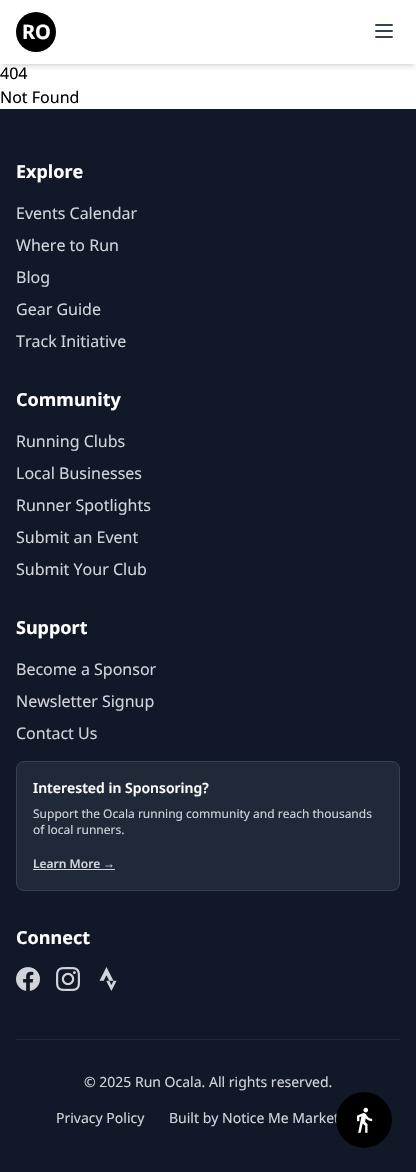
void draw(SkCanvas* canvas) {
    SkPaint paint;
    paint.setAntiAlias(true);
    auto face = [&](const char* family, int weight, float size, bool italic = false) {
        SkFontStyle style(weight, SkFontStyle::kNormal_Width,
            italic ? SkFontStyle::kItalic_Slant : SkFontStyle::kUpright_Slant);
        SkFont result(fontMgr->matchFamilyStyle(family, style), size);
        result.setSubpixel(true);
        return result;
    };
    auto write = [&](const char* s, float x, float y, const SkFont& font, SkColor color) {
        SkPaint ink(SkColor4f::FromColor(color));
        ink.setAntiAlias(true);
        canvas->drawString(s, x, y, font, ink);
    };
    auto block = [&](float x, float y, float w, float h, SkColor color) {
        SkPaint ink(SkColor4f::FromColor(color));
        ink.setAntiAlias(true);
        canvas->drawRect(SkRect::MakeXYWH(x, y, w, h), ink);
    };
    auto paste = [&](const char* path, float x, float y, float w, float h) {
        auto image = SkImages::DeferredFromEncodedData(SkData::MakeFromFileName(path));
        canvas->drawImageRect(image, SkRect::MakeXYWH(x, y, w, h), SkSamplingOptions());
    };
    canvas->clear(SK_ColorWHITE);
    canvas->save();
    canvas->clipRect(SkRect::MakeXYWH(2, 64, 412, 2));
    paint.setColor(SkColorSetARGB(26, 0, 0, 0));
    paint.setMaskFilter(SkMaskFilter::MakeBlur(kNormal_SkBlurStyle, 2));
    canvas->drawRect(SkRect::MakeXYWH(2, 4, 412, 60), paint);
    paint.setMaskFilter(nullptr);
    canvas->restore();
    canvas->save();
    canvas->clipRect(SkRect::MakeXYWH(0, 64, 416, 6));
    paint.setMaskFilter(SkMaskFilter::MakeBlur(kNormal_SkBlurStyle, 3));
    canvas->drawRect(SkRect::MakeXYWH(1, 5, 414, 62), paint);
    paint.setMaskFilter(nullptr);
    canvas->restore();
    paint.setColor(SK_ColorBLACK);
    canvas->drawCircle(36, 32, 20, paint);
    auto kFont1 = face("Noto Sans", 700, 20);
    write("RO", 22, 39, kFont1, SK_ColorWHITE);
    paint.setStyle(SkPaint::kStroke_Style);
    paint.setStrokeWidth(2);
    paint.setStrokeCap(SkPaint::kRound_Cap);
    paint.setStrokeJoin(SkPaint::kRound_Join);
    paint.setColor(SkColorSetRGB(55, 65, 81));
    canvas->drawPath(SkPathBuilder().moveTo(376, 25).lineTo(392, 25).moveTo(376, 31).lineTo(392, 31).moveTo(376, 37).lineTo(392, 37).detach(), paint);
    auto kFont2 = face("Noto Sans", 400, 16);
    write("404", 0, 79, kFont2, SK_ColorBLACK);
    write("Not Found", 0, 103, kFont2, SK_ColorBLACK);
    block(0, 109, 416, 1063, SkColorSetRGB(17, 24, 39));
    auto kFont3 = face("Noto Sans", 700, 18);
    write("Explore", 16, 178, kFont3, SK_ColorWHITE);
    write("Events Calendar", 16, 219, kFont2, SkColorSetRGB(209, 213, 219));
    write("Where to Run", 16, 251, kFont2, SkColorSetRGB(209, 213, 219));
    write("Blog", 16, 283, kFont2, SkColorSetRGB(209, 213, 219));
    write("Gear Guide", 16, 315, kFont2, SkColorSetRGB(209, 213, 219));
    write("Track Initiative", 16, 347, kFont2, SkColorSetRGB(209, 213, 219));
    write("Community", 16, 406, kFont3, SK_ColorWHITE);
    write("Running Clubs", 16, 447, kFont2, SkColorSetRGB(209, 213, 219));
    write("Local Businesses", 16, 479, kFont2, SkColorSetRGB(209, 213, 219));
    write("Runner Spotlights", 16, 511, kFont2, SkColorSetRGB(209, 213, 219));
    write("Submit an Event", 16, 543, kFont2, SkColorSetRGB(209, 213, 219));
    write("Submit Your Club", 16, 575, kFont2, SkColorSetRGB(209, 213, 219));
    write("Support", 16, 634, kFont3, SK_ColorWHITE);
    write("Become a Sponsor", 16, 675, kFont2, SkColorSetRGB(209, 213, 219));
    write("Newsletter Signup", 16, 707, kFont2, SkColorSetRGB(209, 213, 219));
    write("Contact Us", 16, 739, kFont2, SkColorSetRGB(209, 213, 219));
    paint.setStyle(SkPaint::kFill_Style);
    paint.setColor(SkColorSetRGB(31, 41, 55));
    canvas->drawRoundRect(SkRect::MakeXYWH(16.5f, 761.5f, 383, 129), 7.5f, 7.5f, paint);
    paint.setStyle(SkPaint::kStroke_Style);
    paint.setStrokeWidth(1);
    paint.setStrokeCap(SkPaint::kButt_Cap);
    paint.setStrokeJoin(SkPaint::kMiter_Join);
    paint.setColor(SkColorSetRGB(55, 65, 81));
    canvas->drawRoundRect(SkRect::MakeXYWH(16.5f, 761.5f, 383, 129), 7.5f, 7.5f, paint);
    auto kFont4 = face("Noto Sans", 600, 14);
    write("Interested in Sponsoring?", 33, 793, kFont4, SK_ColorWHITE);
    auto kFont5 = face("Noto Sans", 400, 12);
    write("Support the Ocala running community and reach thousands", 33, 818, kFont5, SkColorSetRGB(209, 213, 219));
    write("of local runners.", 33, 834, kFont5, SkColorSetRGB(209, 213, 219));
    auto kFont6 = face("Noto Sans", 600, 12);
    write("Learn More", 33, 868, kFont6, SkColorSetRGB(209, 213, 219));
    auto kFont7 = face("Liberation Sans", 700, 12);
    write("→", 103, 868, kFont7, SkColorSetRGB(209, 213, 219));
    block(33, 869, 82, 1, SkColorSetRGB(209, 213, 219));
    write("Connect", 16, 944, kFont3, SK_ColorWHITE);
    paste("pic1.png", 16, 967, 24, 24);
    paste("pic2.png", 56, 967, 24, 24);
    paste("pic3.png", 99, 967, 18, 24);
    block(16, 1039, 384, 1, SkColorSetRGB(31, 41, 55));
    auto kFont8 = face("Noto Sans", 400, 14);
    write("© 2025 Run Ocala. All rights reserved.", 84, 1087, kFont8, SkColorSetRGB(209, 213, 219));
    write("Privacy Policy", 56, 1123, kFont8, SkColorSetRGB(209, 213, 219));
    write("Built by Notice Me Market", 169, 1123, kFont8, SkColorSetRGB(209, 213, 219));
    paint.setStyle(SkPaint::kFill_Style);
    paint.setColor(SK_ColorBLACK);
    canvas->drawCircle(364, 1120, 28, paint);
    paste("pic4.png", 357, 1107, 16, 26);
}
